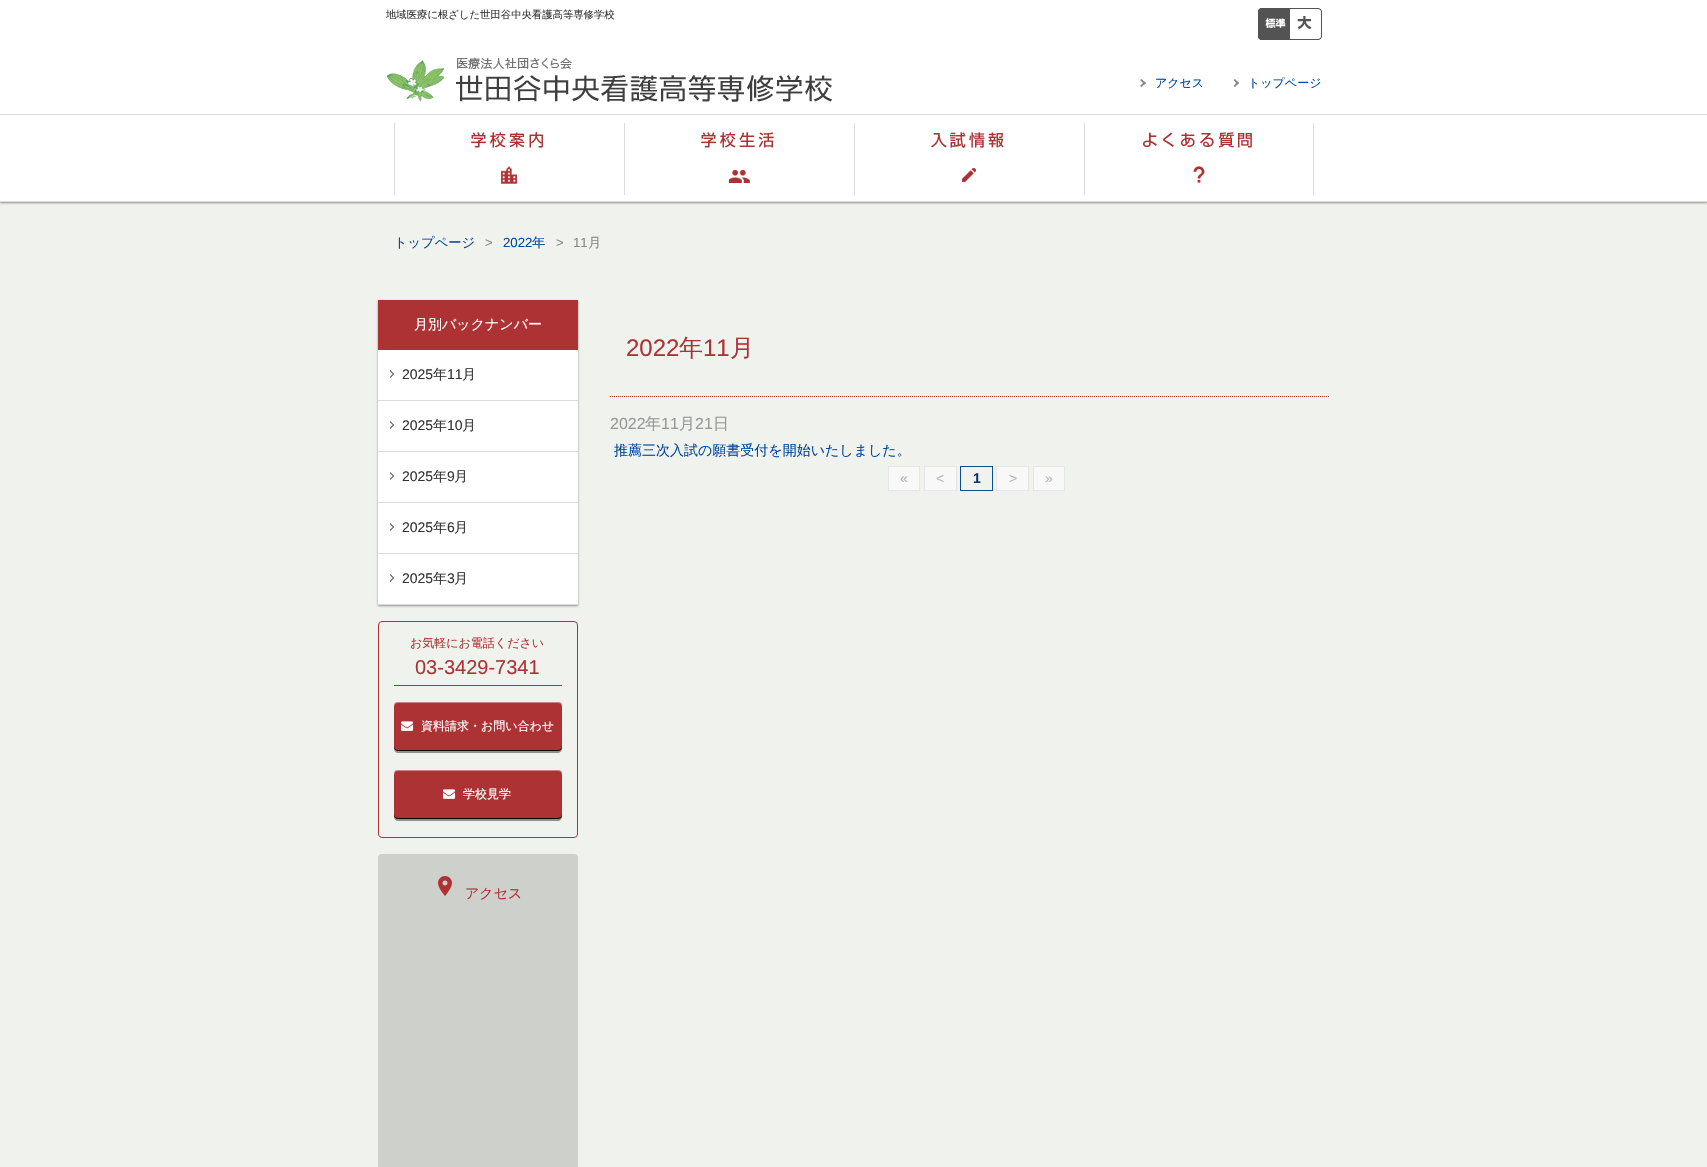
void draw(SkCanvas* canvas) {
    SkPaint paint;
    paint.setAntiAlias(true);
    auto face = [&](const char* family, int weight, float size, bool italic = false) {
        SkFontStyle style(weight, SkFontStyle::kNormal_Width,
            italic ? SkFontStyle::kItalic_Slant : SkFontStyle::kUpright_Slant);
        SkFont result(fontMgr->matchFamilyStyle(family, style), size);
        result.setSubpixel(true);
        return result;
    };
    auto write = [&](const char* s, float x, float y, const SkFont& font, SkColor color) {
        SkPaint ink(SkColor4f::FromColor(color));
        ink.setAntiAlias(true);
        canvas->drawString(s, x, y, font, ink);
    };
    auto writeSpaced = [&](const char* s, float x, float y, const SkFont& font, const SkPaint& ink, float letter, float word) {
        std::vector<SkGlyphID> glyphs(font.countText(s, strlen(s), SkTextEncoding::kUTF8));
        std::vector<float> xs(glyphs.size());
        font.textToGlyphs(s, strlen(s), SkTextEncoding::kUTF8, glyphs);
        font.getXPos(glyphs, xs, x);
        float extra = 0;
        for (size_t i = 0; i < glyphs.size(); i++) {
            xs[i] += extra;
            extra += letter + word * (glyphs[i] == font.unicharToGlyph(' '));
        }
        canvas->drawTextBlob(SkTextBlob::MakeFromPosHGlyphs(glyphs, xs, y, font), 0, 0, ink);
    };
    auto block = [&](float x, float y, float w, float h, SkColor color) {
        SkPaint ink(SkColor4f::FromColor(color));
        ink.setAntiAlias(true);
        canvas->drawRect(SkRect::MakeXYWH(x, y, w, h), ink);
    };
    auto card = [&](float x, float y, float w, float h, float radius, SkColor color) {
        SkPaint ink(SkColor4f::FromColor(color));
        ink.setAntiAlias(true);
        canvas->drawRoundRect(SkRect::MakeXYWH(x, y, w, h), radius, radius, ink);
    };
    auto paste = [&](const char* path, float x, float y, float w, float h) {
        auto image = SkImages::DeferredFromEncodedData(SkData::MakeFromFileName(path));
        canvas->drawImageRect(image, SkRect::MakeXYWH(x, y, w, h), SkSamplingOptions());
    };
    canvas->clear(SkColorSetRGB(240, 242, 237));
    block(0, 0, 1707, 48, SK_ColorWHITE);
    auto kFont1 = face("WenQuanYi Zen Hei", 500, 10.35f);
    write("地域医療に根ざした世田谷中央看護高等専修学校", 386, 18, kFont1, SkColorSetRGB(51, 51, 51));
    paste("pic1.png", 1258, 8, 32, 32);
    paste("pic2.png", 1290, 8, 32, 32);
    paint.setColor(SkColorSetARGB(102, 0, 0, 0));
    paint.setMaskFilter(SkMaskFilter::MakeBlur(kNormal_SkBlurStyle, 1));
    canvas->drawRect(SkRect::MakeXYWH(0, 115, 1707, 88), paint);
    paint.setMaskFilter(nullptr);
    block(0, 48, 1707, 66, SK_ColorWHITE);
    paste("pic3.png", 387, 57, 445, 45);
    paint.setColor(SkColorSetRGB(137, 137, 137));
    canvas->drawPath(SkPathBuilder().moveTo(1140, 80).lineTo(1141.5f, 79).lineTo(1146, 83).lineTo(1144.5f, 84.5f).close().detach(), paint);
    canvas->drawPath(SkPathBuilder().moveTo(1140, 86).lineTo(1144.5f, 81.5f).lineTo(1146, 83).lineTo(1141.5f, 87).close().detach(), paint);
    auto kFont2 = face("WenQuanYi Zen Hei", 500, 12);
    write("アクセス", 1155, 87, kFont2, SkColorSetRGB(0, 70, 157));
    canvas->drawPath(SkPathBuilder().moveTo(1233.5f, 80).lineTo(1235, 79).lineTo(1239, 83).lineTo(1237.5f, 84.5f).close().detach(), paint);
    canvas->drawPath(SkPathBuilder().moveTo(1233.5f, 86).lineTo(1237.5f, 81.5f).lineTo(1239, 83).lineTo(1235, 87).close().detach(), paint);
    write("トップページ", 1248, 87, kFont2, SkColorSetRGB(0, 70, 157));
    block(0, 115, 1707, 86, SK_ColorWHITE);
    block(0, 114, 1707, 1, SkColorSetRGB(219, 219, 219));
    block(0, 201, 1707, 1, SkColorSetRGB(219, 219, 219));
    paste("pic4.png", 394, 123, 149, 72);
    paste("pic5.png", 624, 123, 150, 72);
    paste("pic6.png", 854, 123, 150, 72);
    paste("pic7.png", 1084, 123, 230, 72);
    auto kFont3 = face("WenQuanYi Zen Hei", 500, 13.25f);
    write("トップページ", 394, 247, kFont3, SkColorSetRGB(0, 70, 157));
    auto kFont4 = face("Liberation Sans", 400, 13.25f);
    writeSpaced(">", 485, 247, kFont4, paint, 10, 0);
    write("2022", 503, 247, kFont4, SkColorSetRGB(0, 70, 157));
    write("年", 532, 247, kFont3, SkColorSetRGB(0, 70, 157));
    writeSpaced(">", 556, 247, kFont4, paint, 10, 0);
    write("11", 573, 247, kFont4, SkColorSetRGB(137, 137, 137));
    write("月", 588, 247, kFont3, SkColorSetRGB(137, 137, 137));
    paint.setColor(SkColorSetARGB(102, 0, 0, 0));
    paint.setMaskFilter(SkMaskFilter::MakeBlur(kNormal_SkBlurStyle, 1));
    canvas->drawRect(SkRect::MakeXYWH(378, 301, 200, 305), paint);
    paint.setMaskFilter(nullptr);
    block(378, 350, 200, 254, SK_ColorWHITE);
    block(378, 300, 200, 50, SkColorSetRGB(173, 50, 52));
    auto kFont5 = face("WenQuanYi Zen Hei", 500, 14);
    write("月別バックナンバー", 414, 329, kFont5, SK_ColorWHITE);
    paste("pic8.png", 390, 370, 4, 8);
    auto kFont6 = face("Liberation Sans", 400, 14);
    write("2025", 402, 379, kFont6, SkColorSetRGB(51, 51, 51));
    write("年", 433, 379, kFont5, SkColorSetRGB(51, 51, 51));
    write("11", 447, 379, kFont6, SkColorSetRGB(51, 51, 51));
    write("月", 462, 379, kFont5, SkColorSetRGB(51, 51, 51));
    block(378, 400, 200, 1, SkColorSetRGB(219, 219, 219));
    paste("pic8.png", 390, 421, 4, 8);
    write("2025", 402, 430, kFont6, SkColorSetRGB(51, 51, 51));
    write("年", 433, 430, kFont5, SkColorSetRGB(51, 51, 51));
    write("10", 447, 430, kFont6, SkColorSetRGB(51, 51, 51));
    write("月", 462, 430, kFont5, SkColorSetRGB(51, 51, 51));
    block(378, 451, 200, 1, SkColorSetRGB(219, 219, 219));
    paste("pic8.png", 390, 472, 4, 8);
    write("2025", 402, 481, kFont6, SkColorSetRGB(51, 51, 51));
    write("年", 433, 481, kFont5, SkColorSetRGB(51, 51, 51));
    write("9", 447, 481, kFont6, SkColorSetRGB(51, 51, 51));
    write("月", 454, 481, kFont5, SkColorSetRGB(51, 51, 51));
    block(378, 502, 200, 1, SkColorSetRGB(219, 219, 219));
    paste("pic8.png", 390, 523, 4, 8);
    write("2025", 402, 532, kFont6, SkColorSetRGB(51, 51, 51));
    write("年", 433, 532, kFont5, SkColorSetRGB(51, 51, 51));
    write("6", 447, 532, kFont6, SkColorSetRGB(51, 51, 51));
    write("月", 454, 532, kFont5, SkColorSetRGB(51, 51, 51));
    block(378, 553, 200, 1, SkColorSetRGB(219, 219, 219));
    block(378, 604, 200, 1, SkColorSetRGB(219, 219, 219));
    paste("pic8.png", 390, 574, 4, 8);
    write("2025", 402, 583, kFont6, SkColorSetRGB(51, 51, 51));
    write("年", 433, 583, kFont5, SkColorSetRGB(51, 51, 51));
    write("3", 447, 583, kFont6, SkColorSetRGB(51, 51, 51));
    write("月", 454, 583, kFont5, SkColorSetRGB(51, 51, 51));
    paint.setStyle(SkPaint::kStroke_Style);
    paint.setStrokeWidth(1);
    paint.setColor(SkColorSetRGB(173, 50, 52));
    canvas->drawRoundRect(SkRect::MakeXYWH(378.5f, 621.5f, 199, 216), 3.5f, 3.5f, paint);
    block(394, 685, 168, 1, SkColorSetRGB(173, 50, 52));
    write("お気軽にお電話ください", 410, 647, kFont2, SkColorSetRGB(173, 50, 52));
    auto kFont7 = face("Liberation Sans", 400, 20);
    write("03-3429-7341", 415, 674, kFont7, SkColorSetRGB(173, 50, 52));
    paint.setStyle(SkPaint::kFill_Style);
    paint.setColor(SkColorSetRGB(144, 145, 142));
    canvas->drawPath(SkPathBuilder().moveTo(394, 747).lineTo(394, 749).cubicTo(394, 751, 396, 753, 398, 753).lineTo(558, 753).cubicTo(560, 753, 562, 751, 562, 749).lineTo(562, 747).cubicTo(562, 749, 560, 751, 558, 751).lineTo(398, 751).cubicTo(396, 751, 394, 749, 394, 747).close().detach(), paint);
    card(394, 702, 168, 49, 4, SkColorSetRGB(173, 50, 52));
    paint.setColor(SkColorSetARGB(102, 255, 255, 255));
    canvas->drawPath(SkPathBuilder().moveTo(398, 703).lineTo(558, 703).cubicTo(560, 703, 562, 705, 562, 707).lineTo(562, 706).cubicTo(562, 704, 560, 702, 558, 702).lineTo(398, 702).cubicTo(396, 702, 394, 704, 394, 706).lineTo(394, 707).cubicTo(394, 705, 396, 703, 398, 703).close().detach(), paint);
    paint.setColor(SkColorSetARGB(230, 0, 0, 0));
    canvas->drawPath(SkPathBuilder().moveTo(394, 746).lineTo(394, 747).cubicTo(394, 749, 396, 751, 398, 751).lineTo(558, 751).cubicTo(560, 751, 562, 749, 562, 747).lineTo(562, 746).cubicTo(562, 748, 560, 750, 558, 750).lineTo(398, 750).cubicTo(396, 750, 394, 748, 394, 746).close().detach(), paint);
    paste("pic9.png", 401, 721, 13, 10);
    write("資料請求・お問い合わせ", 421, 730, kFont2, SK_ColorWHITE);
    paint.setColor(SkColorSetRGB(144, 145, 142));
    canvas->drawPath(SkPathBuilder().moveTo(394, 815).lineTo(394, 817).cubicTo(394, 819, 396, 821, 398, 821).lineTo(558, 821).cubicTo(560, 821, 562, 819, 562, 817).lineTo(562, 815).cubicTo(562, 817, 560, 819, 558, 819).lineTo(398, 819).cubicTo(396, 819, 394, 817, 394, 815).close().detach(), paint);
    card(394, 770, 168, 49, 4, SkColorSetRGB(173, 50, 52));
    paint.setColor(SkColorSetARGB(102, 255, 255, 255));
    canvas->drawPath(SkPathBuilder().moveTo(398, 771).lineTo(558, 771).cubicTo(560, 771, 562, 773, 562, 775).lineTo(562, 774).cubicTo(562, 772, 560, 770, 558, 770).lineTo(398, 770).cubicTo(396, 770, 394, 772, 394, 774).lineTo(394, 775).cubicTo(394, 773, 396, 771, 398, 771).close().detach(), paint);
    paint.setColor(SkColorSetARGB(230, 0, 0, 0));
    canvas->drawPath(SkPathBuilder().moveTo(394, 814).lineTo(394, 815).cubicTo(394, 817, 396, 819, 398, 819).lineTo(558, 819).cubicTo(560, 819, 562, 817, 562, 815).lineTo(562, 814).cubicTo(562, 816, 560, 818, 558, 818).lineTo(398, 818).cubicTo(396, 818, 394, 816, 394, 814).close().detach(), paint);
    paste("pic9.png", 443, 789, 13, 10);
    write("学校見学", 463, 798, kFont2, SK_ColorWHITE);
    card(378, 854, 200, 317, 4, SkColorSetRGB(206, 208, 204));
    paste("pic10.png", 438, 876, 14, 20);
    write("アクセス", 465, 898, kFont5, SkColorSetRGB(173, 50, 52));
    paint.setStyle(SkPaint::kStroke_Style);
    paint.setColor(SkColorSetRGB(173, 50, 52));
    paint.setPathEffect(SkDashPathEffect::Make({{1, 1}}, 0));
    canvas->drawPath(SkPathBuilder().moveTo(610, 396.5f).lineTo(1330, 396.5f).detach(), paint);
    paint.setPathEffect(nullptr);
    auto kFont8 = face("Liberation Sans", 400, 24);
    write("2022", 626, 356, kFont8, SkColorSetRGB(173, 50, 52));
    auto kFont9 = face("WenQuanYi Zen Hei", 500, 24);
    write("年", 679, 356, kFont9, SkColorSetRGB(173, 50, 52));
    write("11", 703, 356, kFont8, SkColorSetRGB(173, 50, 52));
    write("月", 730, 356, kFont9, SkColorSetRGB(173, 50, 52));
    auto kFont10 = face("Liberation Sans", 400, 16);
    write("2022", 610, 429, kFont10, SkColorSetRGB(153, 153, 153));
    auto kFont11 = face("WenQuanYi Zen Hei", 500, 16);
    write("年", 645, 429, kFont11, SkColorSetRGB(153, 153, 153));
    write("11", 661, 429, kFont10, SkColorSetRGB(153, 153, 153));
    write("月", 679, 429, kFont11, SkColorSetRGB(153, 153, 153));
    write("21", 695, 429, kFont10, SkColorSetRGB(153, 153, 153));
    write("日", 713, 429, kFont11, SkColorSetRGB(153, 153, 153));
    write("推薦三次入試の願書受付を開始いたしました。", 614, 455, kFont5, SkColorSetRGB(0, 70, 157));
    paint.setStyle(SkPaint::kFill_Style);
    paint.setColor(SkColorSetRGB(248, 248, 248));
    canvas->drawRect(SkRect::MakeXYWH(888.5f, 466.5f, 31, 24), paint);
    paint.setStyle(SkPaint::kStroke_Style);
    paint.setColor(SkColorSetRGB(230, 230, 230));
    canvas->drawRect(SkRect::MakeXYWH(888.5f, 466.5f, 31, 24), paint);
    write("«", 900, 483, kFont6, SkColorSetRGB(180, 180, 180));
    paint.setStyle(SkPaint::kFill_Style);
    paint.setColor(SkColorSetRGB(248, 248, 248));
    canvas->drawRect(SkRect::MakeXYWH(924.5f, 466.5f, 32, 24), paint);
    paint.setStyle(SkPaint::kStroke_Style);
    paint.setColor(SkColorSetRGB(230, 230, 230));
    canvas->drawRect(SkRect::MakeXYWH(924.5f, 466.5f, 32, 24), paint);
    write("<", 936, 483, kFont6, SkColorSetRGB(180, 180, 180));
    paint.setColor(SkColorSetRGB(7, 77, 152));
    canvas->drawRect(SkRect::MakeXYWH(960.5f, 466.5f, 32, 24), paint);
    auto kFont12 = face("Liberation Sans", 700, 14);
    write("1", 973, 483, kFont12, SkColorSetRGB(12, 54, 117));
    paint.setStyle(SkPaint::kFill_Style);
    paint.setColor(SkColorSetRGB(248, 248, 248));
    canvas->drawRect(SkRect::MakeXYWH(996.5f, 466.5f, 32, 24), paint);
    paint.setStyle(SkPaint::kStroke_Style);
    paint.setColor(SkColorSetRGB(230, 230, 230));
    canvas->drawRect(SkRect::MakeXYWH(996.5f, 466.5f, 32, 24), paint);
    write(">", 1009, 483, kFont6, SkColorSetRGB(180, 180, 180));
    paint.setStyle(SkPaint::kFill_Style);
    paint.setColor(SkColorSetRGB(248, 248, 248));
    canvas->drawRect(SkRect::MakeXYWH(1033.5f, 466.5f, 31, 24), paint);
    paint.setStyle(SkPaint::kStroke_Style);
    paint.setColor(SkColorSetRGB(230, 230, 230));
    canvas->drawRect(SkRect::MakeXYWH(1033.5f, 466.5f, 31, 24), paint);
    write("»", 1045, 483, kFont6, SkColorSetRGB(180, 180, 180));
}
